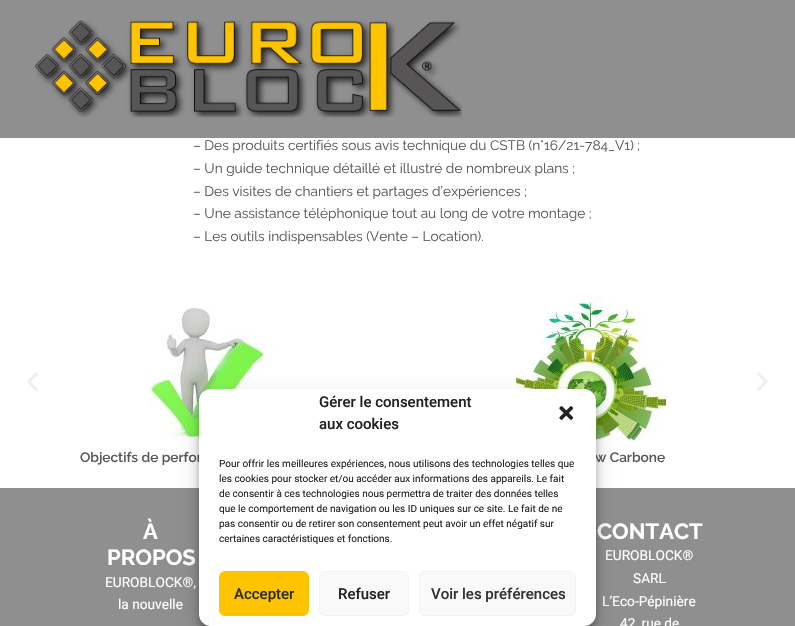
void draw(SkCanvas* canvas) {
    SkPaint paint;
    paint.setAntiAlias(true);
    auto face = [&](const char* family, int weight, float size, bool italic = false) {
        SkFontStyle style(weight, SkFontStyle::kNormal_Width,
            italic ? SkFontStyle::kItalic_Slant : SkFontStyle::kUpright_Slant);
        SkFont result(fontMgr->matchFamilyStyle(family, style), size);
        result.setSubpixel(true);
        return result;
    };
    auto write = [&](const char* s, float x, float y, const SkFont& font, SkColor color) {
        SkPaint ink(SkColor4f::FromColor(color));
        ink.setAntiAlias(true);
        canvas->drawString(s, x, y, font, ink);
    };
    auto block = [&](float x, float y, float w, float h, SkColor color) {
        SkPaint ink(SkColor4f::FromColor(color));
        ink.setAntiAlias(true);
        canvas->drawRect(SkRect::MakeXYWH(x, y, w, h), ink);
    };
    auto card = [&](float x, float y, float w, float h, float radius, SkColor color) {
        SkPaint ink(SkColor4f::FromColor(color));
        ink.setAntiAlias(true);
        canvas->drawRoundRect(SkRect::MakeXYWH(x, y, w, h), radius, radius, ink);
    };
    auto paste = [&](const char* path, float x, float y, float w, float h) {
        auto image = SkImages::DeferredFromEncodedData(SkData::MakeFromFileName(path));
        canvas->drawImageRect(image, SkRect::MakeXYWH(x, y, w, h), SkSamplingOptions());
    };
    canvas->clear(SK_ColorWHITE);
    block(0, 0, 795, 138, SkColorSetRGB(143, 143, 143));
    paste("pic1.png", 35, 20, 427, 98);
    auto kFont1 = face("Raleway", 400, 13.7f);
    write("– Des produits certifiés sous avis technique du CSTB (n°16/21-784_V1) ;", 193, 150, kFont1, SkColorSetRGB(88, 88, 87));
    write("– Un guide technique détaillé et illustré de nombreux plans ;", 193, 173, kFont1, SkColorSetRGB(88, 88, 87));
    write("– Des visites de chantiers et partages d’expériences ;", 193, 196, kFont1, SkColorSetRGB(88, 88, 87));
    write("– Une assistance téléphonique tout au long de votre montage ;", 193, 218, kFont1, SkColorSetRGB(88, 88, 87));
    write("– Les outils indispensables (Vente – Location).", 193, 241, kFont1, SkColorSetRGB(88, 88, 87));
    paste("pic2.png", 27, 372, 11, 19);
    paste("pic3.png", 757, 372, 11, 19);
    paste("pic4.png", 145, 305, 129, 135);
    auto kFont2 = face("Raleway", 600, 13.7f);
    write("Objectifs de perfor", 80, 462, kFont2, SkColorSetRGB(88, 88, 87));
    paste("pic5.png", 516, 296, 150, 146);
    write("w Carbone", 595, 462, kFont2, SkColorSetRGB(88, 88, 87));
    block(0, 488, 795, 138, SkColorSetRGB(143, 143, 143));
    auto kFont3 = face("Raleway", 700, 22);
    write("À", 143, 539, kFont3, SK_ColorWHITE);
    write("PROPOS", 107, 565, kFont3, SK_ColorWHITE);
    auto kFont4 = face("Roboto", 400, 13.7f);
    write("EUROBLOCK®,", 105, 587, kFont4, SK_ColorWHITE);
    write("la nouvelle", 118, 609, kFont4, SK_ColorWHITE);
    write("CONTACT", 597, 539, kFont3, SK_ColorWHITE);
    write("EUROBLOCK®", 605, 560, kFont4, SK_ColorWHITE);
    write("SARL", 633, 583, kFont4, SK_ColorWHITE);
    write("L’Eco-Pépinière", 602, 606, kFont4, SK_ColorWHITE);
    write("42, rue de", 620, 628, kFont4, SK_ColorWHITE);
    paint.setColor(SkColorSetARGB(59, 0, 0, 0));
    paint.setMaskFilter(SkMaskFilter::MakeBlur(kNormal_SkBlurStyle, 3));
    canvas->drawRoundRect(SkRect::MakeXYWH(199, 395, 397, 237), 12, 12, paint);
    paint.setMaskFilter(nullptr);
    paint.setColor(SkColorSetARGB(48, 0, 0, 0));
    paint.setMaskFilter(SkMaskFilter::MakeBlur(kNormal_SkBlurStyle, 10));
    canvas->drawRoundRect(SkRect::MakeXYWH(199, 399, 397, 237), 12, 12, paint);
    paint.setMaskFilter(nullptr);
    card(199, 389, 397, 237, 12, SK_ColorWHITE);
    auto kFont5 = face("Roboto", 500, 15);
    write("Gérer le consentement", 319, 407, kFont5, SkColorSetRGB(34, 34, 34));
    write("aux cookies", 319, 429, kFont5, SkColorSetRGB(34, 34, 34));
    paste("pic6.png", 559, 406, 15, 14);
    auto kFont6 = face("Roboto", 400, 10);
    write("Pour offrir les meilleures expériences, nous utilisons des technologies telles que", 219, 467, kFont6, SkColorSetRGB(34, 34, 34));
    write("les cookies pour stocker et/ou accéder aux informations des appareils. Le fait", 219, 482, kFont6, SkColorSetRGB(34, 34, 34));
    write("de consentir à ces technologies nous permettra de traiter des données telles", 219, 497, kFont6, SkColorSetRGB(34, 34, 34));
    write("que le comportement de navigation ou les ID uniques sur ce site. Le fait de ne", 219, 512, kFont6, SkColorSetRGB(34, 34, 34));
    write("pas consentir ou de retirer son consentement peut avoir un effet négatif sur", 219, 527, kFont6, SkColorSetRGB(34, 34, 34));
    write("certaines caractéristiques et fonctions.", 219, 542, kFont6, SkColorSetRGB(34, 34, 34));
    paint.setColor(SkColorSetRGB(255, 196, 0));
    canvas->drawRoundRect(SkRect::MakeXYWH(219.5f, 571.5f, 89, 44), 5.5f, 5.5f, paint);
    paint.setStyle(SkPaint::kStroke_Style);
    paint.setStrokeWidth(1);
    canvas->drawRoundRect(SkRect::MakeXYWH(219.5f, 571.5f, 89, 44), 5.5f, 5.5f, paint);
    write("Accepter", 234, 599, kFont5, SkColorSetRGB(43, 43, 43));
    paint.setStyle(SkPaint::kFill_Style);
    paint.setColor(SkColorSetRGB(249, 249, 249));
    canvas->drawRoundRect(SkRect::MakeXYWH(319.5f, 571.5f, 89, 44), 5.5f, 5.5f, paint);
    paint.setStyle(SkPaint::kStroke_Style);
    paint.setColor(SkColorSetRGB(242, 242, 242));
    canvas->drawRoundRect(SkRect::MakeXYWH(319.5f, 571.5f, 89, 44), 5.5f, 5.5f, paint);
    write("Refuser", 338, 599, kFont5, SkColorSetRGB(34, 34, 34));
    paint.setStyle(SkPaint::kFill_Style);
    paint.setColor(SkColorSetRGB(249, 249, 249));
    canvas->drawRoundRect(SkRect::MakeXYWH(419.5f, 571.5f, 156, 44), 5.5f, 5.5f, paint);
    paint.setStyle(SkPaint::kStroke_Style);
    paint.setColor(SkColorSetRGB(242, 242, 242));
    canvas->drawRoundRect(SkRect::MakeXYWH(419.5f, 571.5f, 156, 44), 5.5f, 5.5f, paint);
    write("Voir les préférences", 431, 599, kFont5, SkColorSetRGB(51, 51, 51));
}
